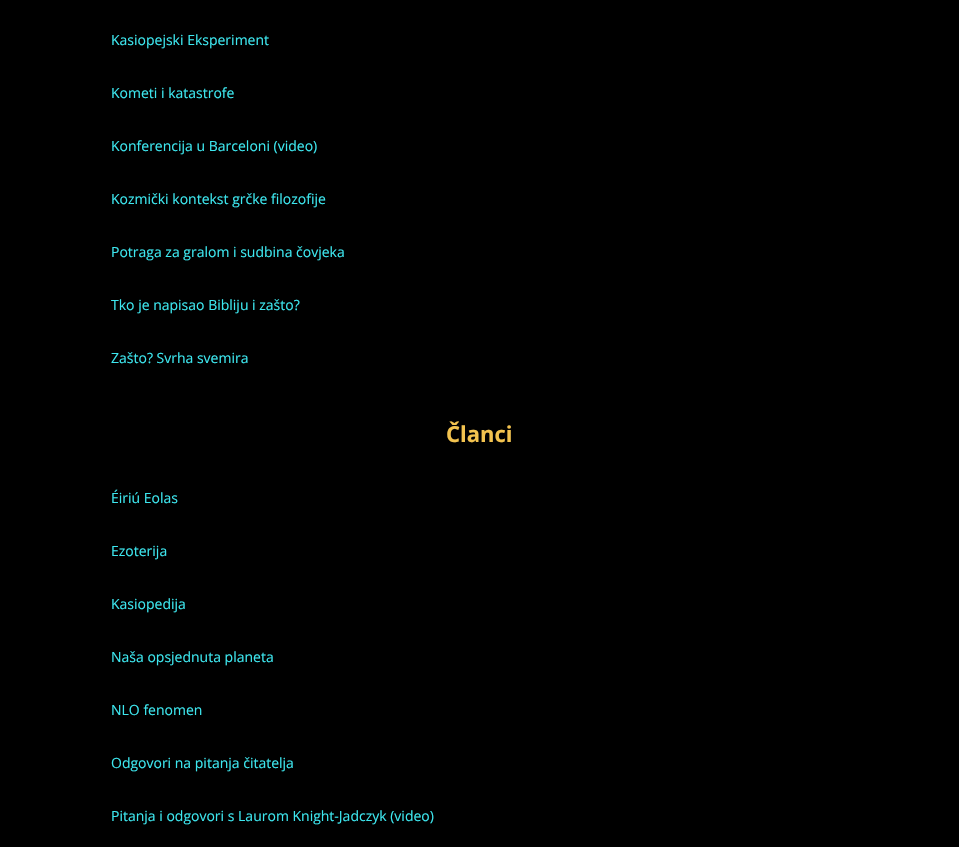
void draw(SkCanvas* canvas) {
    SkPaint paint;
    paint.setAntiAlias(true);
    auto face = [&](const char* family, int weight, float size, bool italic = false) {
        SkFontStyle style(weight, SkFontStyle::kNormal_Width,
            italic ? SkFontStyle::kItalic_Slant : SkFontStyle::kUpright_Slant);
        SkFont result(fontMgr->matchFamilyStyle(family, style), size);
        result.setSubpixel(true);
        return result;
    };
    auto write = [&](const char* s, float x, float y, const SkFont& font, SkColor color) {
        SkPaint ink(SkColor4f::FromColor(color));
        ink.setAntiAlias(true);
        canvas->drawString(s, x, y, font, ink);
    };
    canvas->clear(SK_ColorBLACK);
    auto kFont1 = face("Open Sans", 400, 14);
    write("Kasiopejski Eksperiment", 111, 45, kFont1, SkColorSetRGB(61, 231, 239));
    write("Kometi i katastrofe", 111, 98, kFont1, SkColorSetRGB(61, 231, 239));
    write("Konferencija u Barceloni (video)", 111, 151, kFont1, SkColorSetRGB(61, 231, 239));
    write("Kozmički kontekst grčke filozofije", 111, 204, kFont1, SkColorSetRGB(61, 231, 239));
    write("Potraga za gralom i sudbina čovjeka", 111, 257, kFont1, SkColorSetRGB(61, 231, 239));
    write("Tko je napisao Bibliju i zašto?", 111, 310, kFont1, SkColorSetRGB(61, 231, 239));
    write("Zašto? Svrha svemira", 111, 363, kFont1, SkColorSetRGB(61, 231, 239));
    auto kFont2 = face("Open Sans", 700, 22);
    write("Članci", 446, 442, kFont2, SkColorSetRGB(243, 195, 79));
    write("Éiriú Eolas", 111, 503, kFont1, SkColorSetRGB(61, 231, 239));
    write("Ezoterija", 111, 556, kFont1, SkColorSetRGB(61, 231, 239));
    write("Kasiopedija", 111, 609, kFont1, SkColorSetRGB(61, 231, 239));
    write("Naša opsjednuta planeta", 111, 662, kFont1, SkColorSetRGB(61, 231, 239));
    write("NLO fenomen", 111, 715, kFont1, SkColorSetRGB(61, 231, 239));
    write("Odgovori na pitanja čitatelja", 111, 768, kFont1, SkColorSetRGB(61, 231, 239));
    write("Pitanja i odgovori s Laurom Knight-Jadczyk (video)", 111, 821, kFont1, SkColorSetRGB(61, 231, 239));
}
